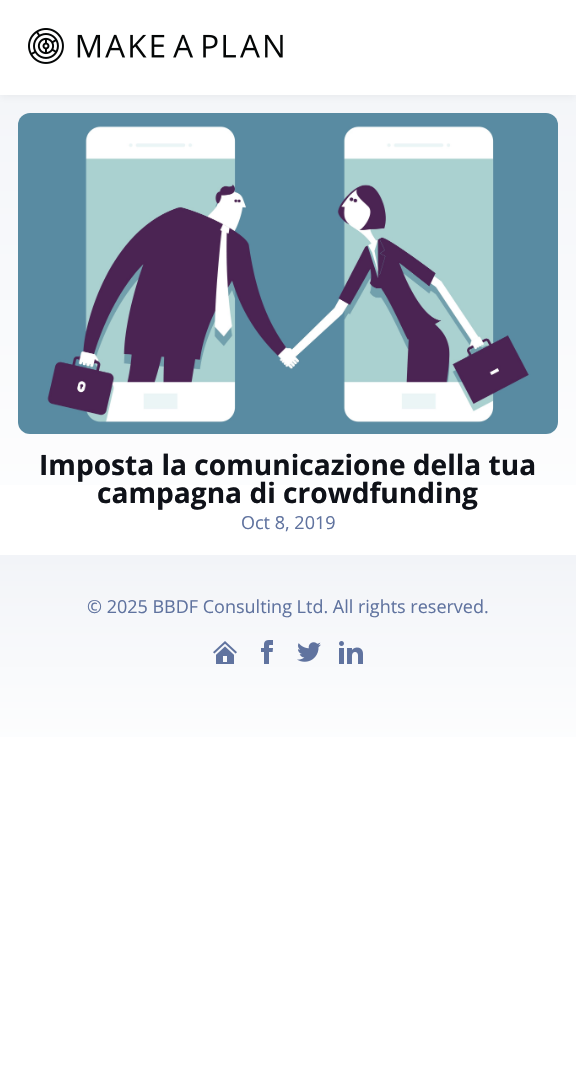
void draw(SkCanvas* canvas) {
    SkPaint paint;
    paint.setAntiAlias(true);
    auto face = [&](const char* family, int weight, float size, bool italic = false) {
        SkFontStyle style(weight, SkFontStyle::kNormal_Width,
            italic ? SkFontStyle::kItalic_Slant : SkFontStyle::kUpright_Slant);
        SkFont result(fontMgr->matchFamilyStyle(family, style), size);
        result.setSubpixel(true);
        return result;
    };
    auto write = [&](const char* s, float x, float y, const SkFont& font, SkColor color) {
        SkPaint ink(SkColor4f::FromColor(color));
        ink.setAntiAlias(true);
        canvas->drawString(s, x, y, font, ink);
    };
    auto block = [&](float x, float y, float w, float h, SkColor color) {
        SkPaint ink(SkColor4f::FromColor(color));
        ink.setAntiAlias(true);
        canvas->drawRect(SkRect::MakeXYWH(x, y, w, h), ink);
    };
    auto paste = [&](const char* path, float x, float y, float w, float h) {
        auto image = SkImages::DeferredFromEncodedData(SkData::MakeFromFileName(path));
        canvas->drawImageRect(image, SkRect::MakeXYWH(x, y, w, h), SkSamplingOptions());
    };
    canvas->clear(SK_ColorWHITE);
    {
        const SkColor colors[] = {SkColorSetRGB(242, 244, 248), SK_ColorWHITE};
        const float stops[] = {0, 1};
        const SkPoint ends[] = {{288, 0}, {288, 600}};
        paint.setShader(SkGradientShader::MakeLinear(ends, colors, stops, 2, SkTileMode::kClamp));
        paint.setAlpha(255);
    }
    canvas->drawRect(SkRect::MakeXYWH(0, 95, 576, 390), paint);
    paint.setShader(nullptr);
    paint.setColor(SkColorSetARGB(13, 15, 18, 25));
    paint.setMaskFilter(SkMaskFilter::MakeBlur(kNormal_SkBlurStyle, 4));
    canvas->drawRect(SkRect::MakeXYWH(0, 2, 576, 95), paint);
    paint.setMaskFilter(nullptr);
    block(0, 0, 576, 95, SK_ColorWHITE);
    paste("pic1.png", 28, 28, 255, 36);
    paste("pic2.png", 18, 113, 540, 321);
    auto kFont1 = face("Open Sans", 700, 28.1f);
    write("Imposta la comunicazione della tua", 39, 475, kFont1, SkColorSetRGB(15, 18, 25));
    write("campagna di crowdfunding", 97, 503, kFont1, SkColorSetRGB(15, 18, 25));
    auto kFont2 = face("Open Sans", 400, 18);
    write("Oct 8, 2019", 241, 529, kFont2, SkColorSetRGB(96, 115, 159));
    {
        const SkColor colors[] = {SkColorSetRGB(242, 244, 248), SK_ColorWHITE};
        const float stops[] = {0, 1};
        const SkPoint ends[] = {{288, 555}, {288, 780}};
        paint.setShader(SkGradientShader::MakeLinear(ends, colors, stops, 2, SkTileMode::kClamp));
        paint.setAlpha(255);
    }
    canvas->drawRect(SkRect::MakeXYWH(0, 555, 576, 182), paint);
    write("© 2025 BBDF Consulting Ltd. All rights reserved.", 87, 613, kFont2, SkColorSetRGB(96, 115, 159));
    paste("pic3.png", 213, 641, 24, 23);
    paste("pic4.png", 261, 640, 12, 24);
    paste("pic5.png", 297, 642, 24, 20);
    paste("pic6.png", 339, 641, 24, 23);
}
